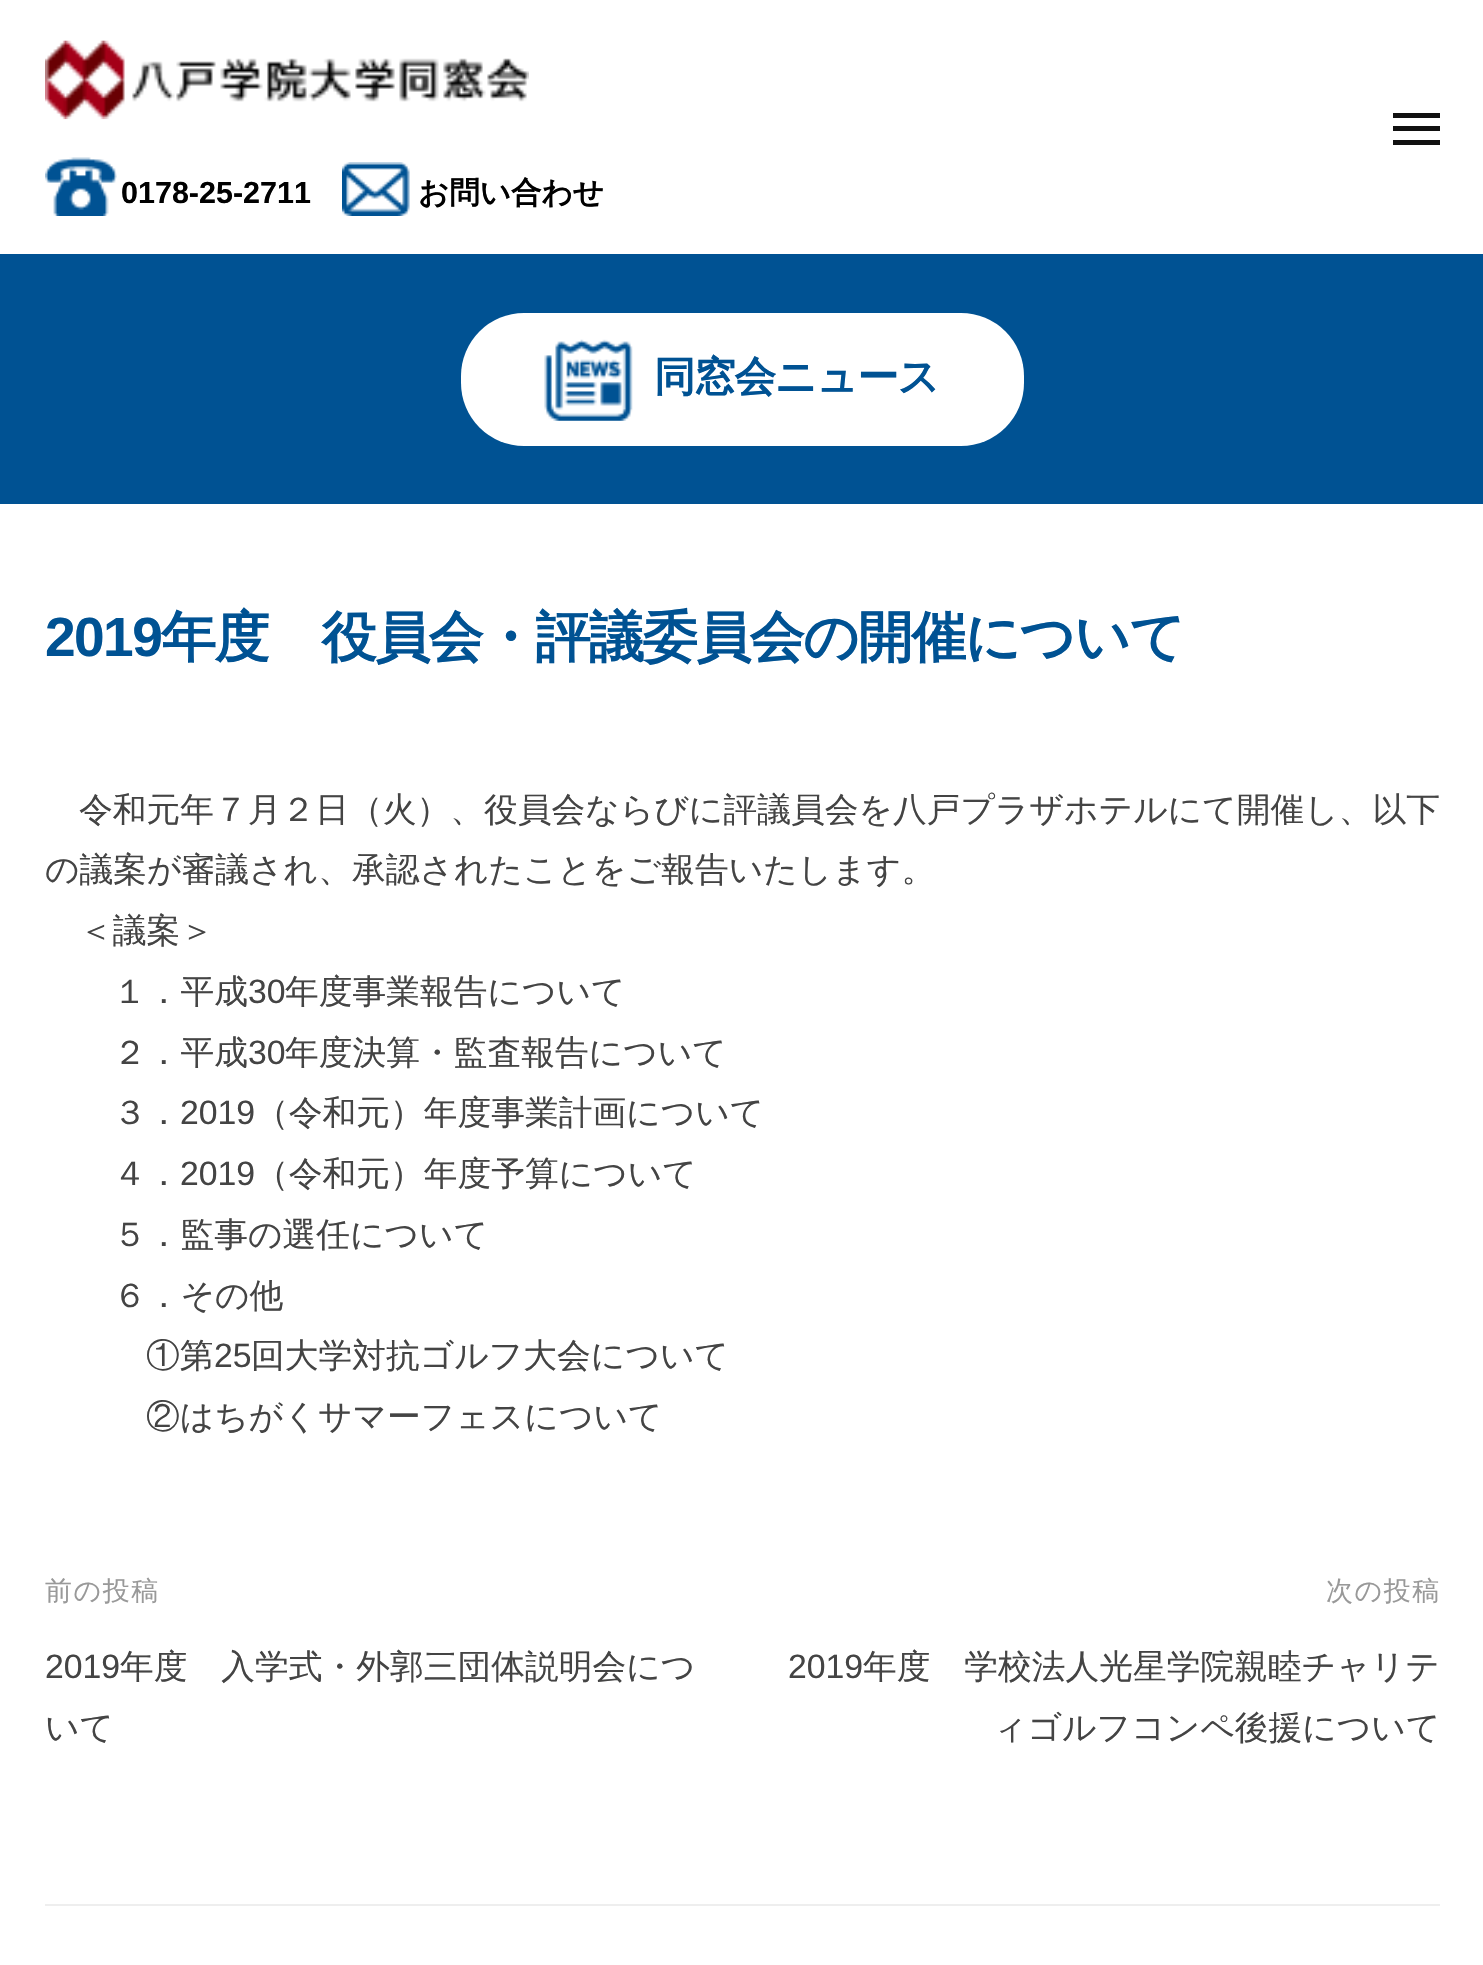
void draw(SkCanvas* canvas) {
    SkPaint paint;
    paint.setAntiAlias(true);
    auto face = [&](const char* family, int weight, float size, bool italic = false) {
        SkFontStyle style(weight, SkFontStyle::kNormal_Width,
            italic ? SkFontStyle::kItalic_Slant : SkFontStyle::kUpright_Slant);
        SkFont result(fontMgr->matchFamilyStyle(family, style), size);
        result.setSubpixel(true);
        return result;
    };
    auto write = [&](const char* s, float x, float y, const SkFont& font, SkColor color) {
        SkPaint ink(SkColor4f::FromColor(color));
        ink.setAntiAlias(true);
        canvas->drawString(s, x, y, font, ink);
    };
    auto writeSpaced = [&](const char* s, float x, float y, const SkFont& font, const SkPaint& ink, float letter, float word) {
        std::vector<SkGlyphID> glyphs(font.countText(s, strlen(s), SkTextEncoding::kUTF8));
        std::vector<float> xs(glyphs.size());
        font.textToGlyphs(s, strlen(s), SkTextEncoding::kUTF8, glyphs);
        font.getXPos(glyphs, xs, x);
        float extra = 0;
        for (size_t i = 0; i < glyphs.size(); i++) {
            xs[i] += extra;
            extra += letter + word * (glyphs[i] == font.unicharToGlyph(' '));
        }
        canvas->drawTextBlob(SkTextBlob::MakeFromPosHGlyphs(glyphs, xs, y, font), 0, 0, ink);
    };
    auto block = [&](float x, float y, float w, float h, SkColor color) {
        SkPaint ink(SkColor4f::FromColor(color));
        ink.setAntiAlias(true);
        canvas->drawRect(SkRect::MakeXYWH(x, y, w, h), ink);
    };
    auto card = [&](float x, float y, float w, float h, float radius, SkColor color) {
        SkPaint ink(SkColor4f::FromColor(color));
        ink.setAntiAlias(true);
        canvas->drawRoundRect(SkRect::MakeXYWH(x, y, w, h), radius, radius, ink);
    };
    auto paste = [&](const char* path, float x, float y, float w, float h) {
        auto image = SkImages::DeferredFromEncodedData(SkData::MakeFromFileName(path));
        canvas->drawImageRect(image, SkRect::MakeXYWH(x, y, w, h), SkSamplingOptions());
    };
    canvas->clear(SK_ColorWHITE);
    block(1393, 126, 47, 5, SkColorSetRGB(17, 17, 17));
    block(1393, 113, 47, 5, SkColorSetRGB(17, 17, 17));
    block(1393, 140, 47, 5, SkColorSetRGB(17, 17, 17));
    paste("pic1.png", 45, 40, 484, 80);
    paste("pic2.png", 45, 157, 72, 59);
    auto kFont1 = face("Liberation Sans", 700, 30.5f);
    write("0178-25-2711", 121, 203, kFont1, SK_ColorBLACK);
    paste("pic3.png", 342, 162, 68, 54);
    auto kFont2 = face("WenQuanYi Zen Hei", 700, 30.5f);
    write("お問い合わせ", 418, 203, kFont2, SK_ColorBLACK);
    block(0, 254, 1483, 250, SkColorSetRGB(0, 82, 147));
    card(461, 313, 563, 133, 63, SK_ColorWHITE);
    paste("pic4.png", 544, 339, 89, 82);
    auto kFont3 = face("WenQuanYi Zen Hei", 700, 41.5f);
    paint.setColor(SkColorSetRGB(0, 82, 147));
    writeSpaced("同窓会ニュース", 654, 391, kFont3, paint, -1.25f, 0);
    auto kFont4 = face("Liberation Sans", 700, 55.1f);
    writeSpaced("2019", 45, 656, kFont4, paint, -1.6f, 0);
    auto kFont5 = face("WenQuanYi Zen Hei", 700, 55.1f);
    writeSpaced("年度　役員会・評議委員会の開催について", 161, 656, kFont5, paint, -1.6f, 0);
    auto kFont6 = face("WenQuanYi Zen Hei", 500, 33.75f);
    write("令和元年７月２日（火）、役員会ならびに評議員会を八戸プラザホテルにて開催し、以下", 79, 821, kFont6, SkColorSetRGB(68, 68, 68));
    write("の議案が審議され、承認されたことをご報告いたします。", 45, 881, kFont6, SkColorSetRGB(68, 68, 68));
    write("＜議案＞", 79, 942, kFont6, SkColorSetRGB(68, 68, 68));
    write("１．平成", 113, 1003, kFont6, SkColorSetRGB(68, 68, 68));
    auto kFont7 = face("Liberation Sans", 400, 33.75f);
    write("30", 248, 1003, kFont7, SkColorSetRGB(68, 68, 68));
    write("年度事業報告について", 285, 1003, kFont6, SkColorSetRGB(68, 68, 68));
    write("２．平成", 113, 1064, kFont6, SkColorSetRGB(68, 68, 68));
    write("30", 248, 1064, kFont7, SkColorSetRGB(68, 68, 68));
    write("年度決算・監査報告について", 285, 1064, kFont6, SkColorSetRGB(68, 68, 68));
    write("３．", 113, 1124, kFont6, SkColorSetRGB(68, 68, 68));
    write("2019", 180, 1124, kFont7, SkColorSetRGB(68, 68, 68));
    write("（令和元）年度事業計画について", 255, 1124, kFont6, SkColorSetRGB(68, 68, 68));
    write("４．", 113, 1185, kFont6, SkColorSetRGB(68, 68, 68));
    write("2019", 180, 1185, kFont7, SkColorSetRGB(68, 68, 68));
    write("（令和元）年度予算について", 255, 1185, kFont6, SkColorSetRGB(68, 68, 68));
    write("５．監事の選任について", 113, 1246, kFont6, SkColorSetRGB(68, 68, 68));
    write("６．その他", 113, 1307, kFont6, SkColorSetRGB(68, 68, 68));
    write("①第", 146, 1367, kFont6, SkColorSetRGB(68, 68, 68));
    write("25", 214, 1367, kFont7, SkColorSetRGB(68, 68, 68));
    write("回大学対抗ゴルフ大会について", 251, 1367, kFont6, SkColorSetRGB(68, 68, 68));
    write("②はちがくサマーフェスについて", 146, 1428, kFont6, SkColorSetRGB(68, 68, 68));
    auto kFont8 = face("WenQuanYi Zen Hei", 500, 27);
    paint.setColor(SkColorSetRGB(153, 153, 153));
    writeSpaced("前の投稿", 45, 1600, kFont8, paint, 1.5f, 0);
    write("2019", 45, 1678, kFont7, SkColorSetRGB(68, 68, 68));
    write("年度　入学式・外郭三団体説明会につ", 120, 1678, kFont6, SkColorSetRGB(68, 68, 68));
    write("いて", 45, 1739, kFont6, SkColorSetRGB(68, 68, 68));
    writeSpaced("次の投稿", 1326, 1600, kFont8, paint, 1.5f, 0);
    write("2019", 788, 1678, kFont7, SkColorSetRGB(68, 68, 68));
    write("年度　学校法人光星学院親睦チャリテ", 863, 1678, kFont6, SkColorSetRGB(68, 68, 68));
    write("ィゴルフコンペ後援について", 993, 1739, kFont6, SkColorSetRGB(68, 68, 68));
    block(45, 1904, 1395, 2, SkColorSetRGB(238, 238, 238));
}
